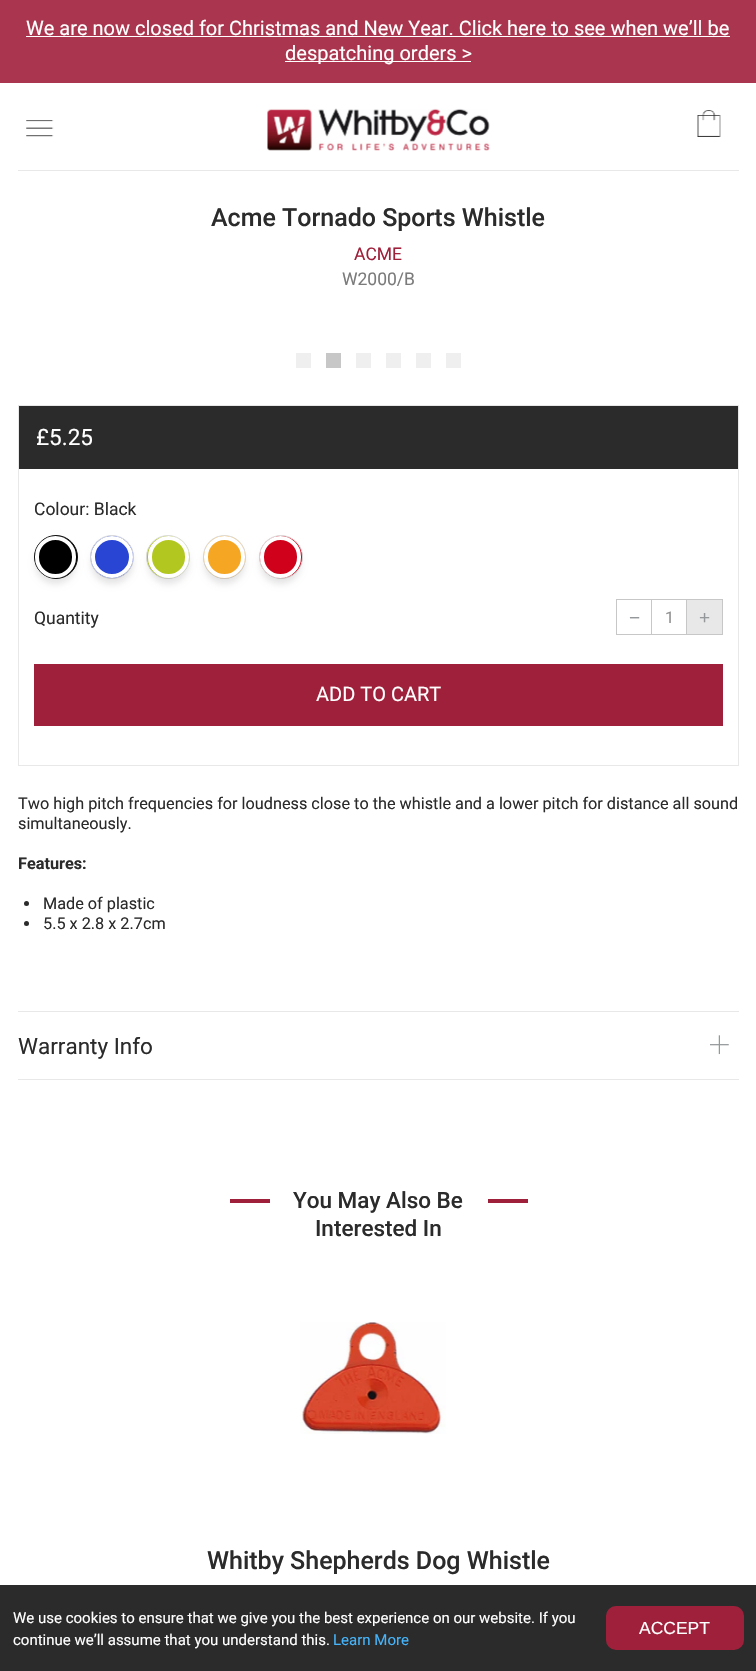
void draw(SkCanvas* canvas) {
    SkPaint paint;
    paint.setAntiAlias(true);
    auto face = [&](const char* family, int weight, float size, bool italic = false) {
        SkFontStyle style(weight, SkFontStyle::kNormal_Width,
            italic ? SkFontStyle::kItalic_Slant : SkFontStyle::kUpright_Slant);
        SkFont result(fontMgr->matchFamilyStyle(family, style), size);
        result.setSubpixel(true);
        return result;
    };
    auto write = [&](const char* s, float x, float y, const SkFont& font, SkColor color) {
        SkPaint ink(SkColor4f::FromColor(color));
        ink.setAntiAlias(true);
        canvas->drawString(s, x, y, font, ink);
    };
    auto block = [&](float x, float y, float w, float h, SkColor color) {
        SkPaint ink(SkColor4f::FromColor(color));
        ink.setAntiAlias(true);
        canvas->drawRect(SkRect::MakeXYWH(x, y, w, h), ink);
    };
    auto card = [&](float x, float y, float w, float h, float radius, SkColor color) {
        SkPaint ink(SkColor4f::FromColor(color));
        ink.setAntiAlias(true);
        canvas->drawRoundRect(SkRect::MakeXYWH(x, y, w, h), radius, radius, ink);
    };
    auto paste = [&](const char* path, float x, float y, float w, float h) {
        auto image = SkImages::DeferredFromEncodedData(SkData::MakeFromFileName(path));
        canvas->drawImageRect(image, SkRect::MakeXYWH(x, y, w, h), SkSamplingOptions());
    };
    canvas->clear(SK_ColorWHITE);
    block(0, 0, 756, 83, SkColorSetRGB(169, 54, 78));
    auto kFont1 = face("Roboto", 400, 20);
    write("We are now closed for Christmas and New Year. Click here to see when we’ll be", 26, 35, kFont1, SK_ColorWHITE);
    block(26, 36, 704, 1, SK_ColorWHITE);
    block(285, 61, 186, 1, SK_ColorWHITE);
    write("despatching orders >", 285, 60, kFont1, SK_ColorWHITE);
    paste("pic1.png", 26, 120, 28, 17);
    paste("pic2.png", 267, 108, 223, 43);
    paste("pic3.png", 697, 110, 24, 27);
    block(18, 170, 721, 1, SkColorSetRGB(232, 232, 232));
    auto kFont2 = face("Roboto", 500, 25);
    write("Acme Tornado Sports Whistle", 211, 226, kFont2, SkColorSetRGB(43, 43, 43));
    auto kFont3 = face("Roboto", 400, 17.5f);
    write("ACME", 354, 260, kFont3, SkColorSetRGB(159, 32, 58));
    write("W2000/B", 342, 285, kFont3, SkColorSetRGB(123, 123, 123));
    block(296, 353, 15, 15, SkColorSetRGB(239, 239, 239));
    block(326, 353, 15, 15, SkColorSetRGB(199, 199, 199));
    block(356, 353, 15, 15, SkColorSetRGB(239, 239, 239));
    block(386, 353, 15, 15, SkColorSetRGB(239, 239, 239));
    block(416, 353, 15, 15, SkColorSetRGB(239, 239, 239));
    block(446, 353, 15, 15, SkColorSetRGB(239, 239, 239));
    paint.setStyle(SkPaint::kStroke_Style);
    paint.setStrokeWidth(1);
    paint.setColor(SkColorSetRGB(232, 232, 232));
    canvas->drawRect(SkRect::MakeXYWH(18.5f, 405.5f, 720, 360), paint);
    block(19, 406, 719, 63, SkColorSetRGB(43, 43, 43));
    auto kFont4 = face("Roboto", 400, 22.5f);
    write("£5.25", 36, 445, kFont4, SK_ColorWHITE);
    write("Colour: Black", 34, 515, kFont3, SkColorSetRGB(43, 43, 43));
    paint.setStyle(SkPaint::kFill_Style);
    paint.setColor(SK_ColorBLACK);
    canvas->drawCircle(56, 557, 21.5f, paint);
    paint.setStyle(SkPaint::kStroke_Style);
    paint.setColor(SkColorSetRGB(18, 18, 18));
    canvas->drawCircle(56, 557, 21.5f, paint);
    canvas->save();
    canvas->clipPath(SkPathBuilder(SkPathFillType::kEvenOdd).moveTo(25, 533).lineTo(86, 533).lineTo(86, 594).lineTo(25, 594).close().moveTo(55.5f, 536).cubicTo(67, 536, 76, 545, 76, 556.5f).lineTo(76, 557.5f).cubicTo(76, 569, 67, 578, 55.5f, 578).cubicTo(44, 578, 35, 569, 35, 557.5f).lineTo(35, 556.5f).cubicTo(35, 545, 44, 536, 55.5f, 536).close().detach(), true);
    paint.setStyle(SkPaint::kFill_Style);
    paint.setColor(SkColorSetARGB(26, 0, 0, 0));
    paint.setMaskFilter(SkMaskFilter::MakeBlur(kNormal_SkBlurStyle, 3));
    canvas->drawRoundRect(SkRect::MakeXYWH(35, 543, 41, 41), 20.5f, 20.5f, paint);
    paint.setMaskFilter(nullptr);
    canvas->restore();
    paint.setStyle(SkPaint::kStroke_Style);
    paint.setStrokeWidth(4);
    paint.setColor(SK_ColorWHITE);
    canvas->drawRoundRect(SkRect::MakeXYWH(37, 538, 37, 38), 18.5f, 18.5f, paint);
    paint.setStyle(SkPaint::kFill_Style);
    paint.setColor(SkColorSetRGB(40, 69, 212));
    canvas->drawCircle(112, 557, 21.5f, paint);
    paint.setStyle(SkPaint::kStroke_Style);
    paint.setStrokeWidth(1);
    paint.setColor(SkColorSetRGB(221, 221, 221));
    canvas->drawCircle(112, 557, 21.5f, paint);
    canvas->save();
    canvas->clipPath(SkPathBuilder(SkPathFillType::kEvenOdd).moveTo(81, 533).lineTo(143, 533).lineTo(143, 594).lineTo(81, 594).close().moveTo(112, 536).cubicTo(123.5f, 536, 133, 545.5f, 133, 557).cubicTo(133, 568.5f, 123.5f, 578, 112, 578).cubicTo(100.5f, 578, 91, 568.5f, 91, 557).cubicTo(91, 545.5f, 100.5f, 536, 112, 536).close().detach(), true);
    paint.setStyle(SkPaint::kFill_Style);
    paint.setColor(SkColorSetARGB(26, 0, 0, 0));
    paint.setMaskFilter(SkMaskFilter::MakeBlur(kNormal_SkBlurStyle, 3));
    canvas->drawRoundRect(SkRect::MakeXYWH(91, 543, 42, 41), 20.5f, 20.5f, paint);
    paint.setMaskFilter(nullptr);
    canvas->restore();
    paint.setStyle(SkPaint::kStroke_Style);
    paint.setStrokeWidth(4);
    paint.setColor(SK_ColorWHITE);
    canvas->drawCircle(112, 557, 19, paint);
    paint.setStyle(SkPaint::kFill_Style);
    paint.setColor(SkColorSetRGB(178, 199, 32));
    canvas->drawCircle(168, 557, 21.5f, paint);
    paint.setStyle(SkPaint::kStroke_Style);
    paint.setStrokeWidth(1);
    paint.setColor(SkColorSetRGB(221, 221, 221));
    canvas->drawCircle(168, 557, 21.5f, paint);
    canvas->save();
    canvas->clipPath(SkPathBuilder(SkPathFillType::kEvenOdd).moveTo(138, 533).lineTo(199, 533).lineTo(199, 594).lineTo(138, 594).close().moveTo(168.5f, 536).cubicTo(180, 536, 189, 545, 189, 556.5f).lineTo(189, 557.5f).cubicTo(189, 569, 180, 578, 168.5f, 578).cubicTo(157, 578, 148, 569, 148, 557.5f).lineTo(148, 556.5f).cubicTo(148, 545, 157, 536, 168.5f, 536).close().detach(), true);
    paint.setStyle(SkPaint::kFill_Style);
    paint.setColor(SkColorSetARGB(26, 0, 0, 0));
    paint.setMaskFilter(SkMaskFilter::MakeBlur(kNormal_SkBlurStyle, 3));
    canvas->drawRoundRect(SkRect::MakeXYWH(148, 543, 41, 41), 20.5f, 20.5f, paint);
    paint.setMaskFilter(nullptr);
    canvas->restore();
    paint.setStyle(SkPaint::kStroke_Style);
    paint.setStrokeWidth(4);
    paint.setColor(SK_ColorWHITE);
    canvas->drawRoundRect(SkRect::MakeXYWH(150, 538, 37, 38), 18.5f, 18.5f, paint);
    paint.setStyle(SkPaint::kFill_Style);
    paint.setColor(SkColorSetRGB(245, 166, 35));
    canvas->drawRoundRect(SkRect::MakeXYWH(203.5f, 535.5f, 42, 43), 21, 21, paint);
    paint.setStyle(SkPaint::kStroke_Style);
    paint.setStrokeWidth(1);
    paint.setColor(SkColorSetRGB(221, 221, 221));
    canvas->drawRoundRect(SkRect::MakeXYWH(203.5f, 535.5f, 42, 43), 21, 21, paint);
    canvas->save();
    canvas->clipPath(SkPathBuilder(SkPathFillType::kEvenOdd).moveTo(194, 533).lineTo(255, 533).lineTo(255, 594).lineTo(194, 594).close().moveTo(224.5f, 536).cubicTo(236, 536, 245, 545, 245, 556.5f).lineTo(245, 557.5f).cubicTo(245, 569, 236, 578, 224.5f, 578).cubicTo(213, 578, 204, 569, 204, 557.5f).lineTo(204, 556.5f).cubicTo(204, 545, 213, 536, 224.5f, 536).close().detach(), true);
    paint.setStyle(SkPaint::kFill_Style);
    paint.setColor(SkColorSetARGB(26, 0, 0, 0));
    paint.setMaskFilter(SkMaskFilter::MakeBlur(kNormal_SkBlurStyle, 3));
    canvas->drawRoundRect(SkRect::MakeXYWH(204, 543, 41, 41), 20.5f, 20.5f, paint);
    paint.setMaskFilter(nullptr);
    canvas->restore();
    paint.setStyle(SkPaint::kStroke_Style);
    paint.setStrokeWidth(4);
    paint.setColor(SK_ColorWHITE);
    canvas->drawRoundRect(SkRect::MakeXYWH(206, 538, 37, 38), 18.5f, 18.5f, paint);
    paint.setStyle(SkPaint::kFill_Style);
    paint.setColor(SkColorSetRGB(208, 2, 27));
    canvas->drawCircle(281, 557, 21.5f, paint);
    paint.setStyle(SkPaint::kStroke_Style);
    paint.setStrokeWidth(1);
    paint.setColor(SkColorSetRGB(221, 221, 221));
    canvas->drawCircle(281, 557, 21.5f, paint);
    canvas->save();
    canvas->clipPath(SkPathBuilder(SkPathFillType::kEvenOdd).moveTo(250, 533).lineTo(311, 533).lineTo(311, 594).lineTo(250, 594).close().moveTo(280.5f, 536).cubicTo(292, 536, 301, 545, 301, 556.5f).lineTo(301, 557.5f).cubicTo(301, 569, 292, 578, 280.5f, 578).cubicTo(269, 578, 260, 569, 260, 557.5f).lineTo(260, 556.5f).cubicTo(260, 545, 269, 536, 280.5f, 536).close().detach(), true);
    paint.setStyle(SkPaint::kFill_Style);
    paint.setColor(SkColorSetARGB(26, 0, 0, 0));
    paint.setMaskFilter(SkMaskFilter::MakeBlur(kNormal_SkBlurStyle, 3));
    canvas->drawRoundRect(SkRect::MakeXYWH(260, 543, 41, 41), 20.5f, 20.5f, paint);
    paint.setMaskFilter(nullptr);
    canvas->restore();
    paint.setStyle(SkPaint::kStroke_Style);
    paint.setStrokeWidth(4);
    paint.setColor(SK_ColorWHITE);
    canvas->drawRoundRect(SkRect::MakeXYWH(262, 538, 37, 38), 18.5f, 18.5f, paint);
    write("Quantity", 34, 624, kFont3, SkColorSetRGB(43, 43, 43));
    paint.setStrokeWidth(1);
    paint.setColor(SkColorSetRGB(199, 199, 199));
    canvas->drawRect(SkRect::MakeXYWH(616.5f, 599.5f, 36, 35), paint);
    auto kFont5 = face("Liberation Sans", 400, 19);
    write("−", 629, 624, kFont5, SkColorSetRGB(149, 152, 154));
    block(652, 600, 1, 34, SK_ColorWHITE);
    canvas->drawRect(SkRect::MakeXYWH(651.5f, 599.5f, 36, 35), paint);
    auto kFont6 = face("Roboto", 400, 16.25f);
    write("1", 665, 623, kFont6, SkColorSetRGB(144, 144, 144));
    paint.setStyle(SkPaint::kFill_Style);
    paint.setColor(SkColorSetRGB(232, 232, 232));
    canvas->drawRect(SkRect::MakeXYWH(686.5f, 599.5f, 36, 35), paint);
    paint.setStyle(SkPaint::kStroke_Style);
    paint.setColor(SkColorSetRGB(199, 199, 199));
    canvas->drawRect(SkRect::MakeXYWH(686.5f, 599.5f, 36, 35), paint);
    write("+", 699, 624, kFont5, SkColorSetRGB(149, 152, 154));
    block(34, 664, 689, 62, SkColorSetRGB(159, 32, 58));
    write("ADD TO CART", 316, 701, kFont1, SK_ColorWHITE);
    write("Two high pitch frequencies for loudness close to the whistle and a lower pitch for distance all sound", 18, 809, kFont6, SkColorSetRGB(43, 43, 43));
    write("simultaneously.", 18, 829, kFont6, SkColorSetRGB(43, 43, 43));
    auto kFont7 = face("Roboto", 700, 16.25f);
    write("Features:", 18, 869, kFont7, SkColorSetRGB(43, 43, 43));
    paint.setStyle(SkPaint::kFill_Style);
    paint.setColor(SkColorSetRGB(43, 43, 43));
    canvas->drawCircle(26.5f, 903.5f, 2.5f, paint);
    write("Made of plastic", 43, 909, kFont6, SkColorSetRGB(43, 43, 43));
    canvas->drawCircle(26.5f, 923.5f, 2.5f, paint);
    write("5.5 x 2.8 x 2.7cm", 43, 929, kFont6, SkColorSetRGB(43, 43, 43));
    block(18, 1079, 721, 1, SkColorSetRGB(232, 232, 232));
    block(18, 1011, 721, 1, SkColorSetRGB(232, 232, 232));
    write("Warranty Info", 18, 1054, kFont4, SkColorSetRGB(43, 43, 43));
    paste("pic4.png", 710, 1035, 19, 20);
    block(230, 1199, 40, 4, SkColorSetRGB(159, 32, 58));
    auto kFont8 = face("Roboto", 500, 22.5f);
    write("You May Also Be", 293, 1208, kFont8, SkColorSetRGB(43, 43, 43));
    block(488, 1199, 40, 4, SkColorSetRGB(159, 32, 58));
    write("Interested In", 315, 1236, kFont8, SkColorSetRGB(43, 43, 43));
    paste("pic5.png", 300, 1322, 146, 112);
    write("Whitby Shepherds Dog Whistle", 207, 1569, kFont2, SkColorSetRGB(43, 43, 43));
    block(0, 1585, 756, 86, SkColorSetRGB(43, 43, 43));
    auto kFont9 = face("Roboto", 400, 15);
    write("We use cookies to ensure that we give you the best experience on our website. If you", 13, 1623, kFont9, SK_ColorWHITE);
    write("continue we’ll assume that you understand this.", 13, 1645, kFont9, SK_ColorWHITE);
    write("Learn More", 333, 1645, kFont9, SkColorSetRGB(69, 180, 250));
    card(606, 1606, 138, 44, 10, SkColorSetRGB(159, 32, 58));
    auto kFont10 = face("Liberation Sans", 400, 17.5f);
    write("ACCEPT", 639, 1634, kFont10, SK_ColorWHITE);
}
